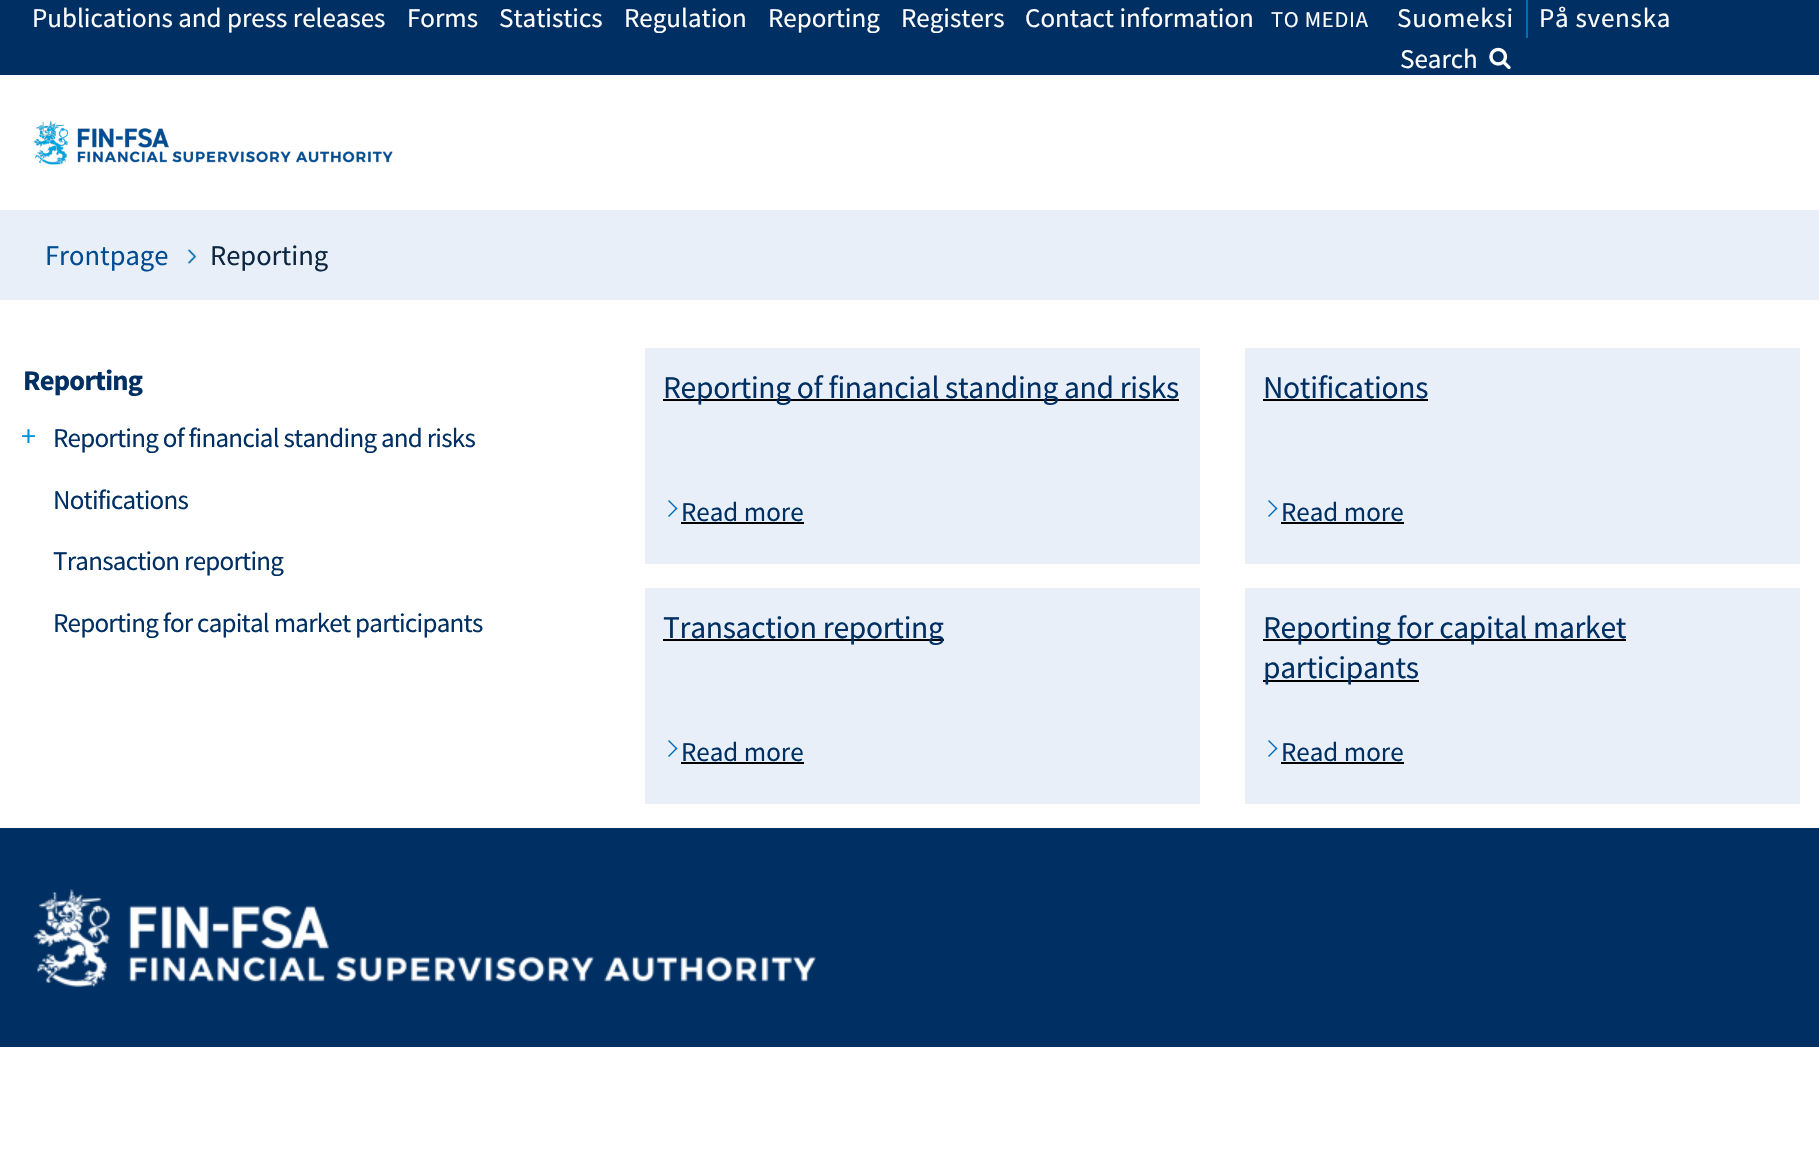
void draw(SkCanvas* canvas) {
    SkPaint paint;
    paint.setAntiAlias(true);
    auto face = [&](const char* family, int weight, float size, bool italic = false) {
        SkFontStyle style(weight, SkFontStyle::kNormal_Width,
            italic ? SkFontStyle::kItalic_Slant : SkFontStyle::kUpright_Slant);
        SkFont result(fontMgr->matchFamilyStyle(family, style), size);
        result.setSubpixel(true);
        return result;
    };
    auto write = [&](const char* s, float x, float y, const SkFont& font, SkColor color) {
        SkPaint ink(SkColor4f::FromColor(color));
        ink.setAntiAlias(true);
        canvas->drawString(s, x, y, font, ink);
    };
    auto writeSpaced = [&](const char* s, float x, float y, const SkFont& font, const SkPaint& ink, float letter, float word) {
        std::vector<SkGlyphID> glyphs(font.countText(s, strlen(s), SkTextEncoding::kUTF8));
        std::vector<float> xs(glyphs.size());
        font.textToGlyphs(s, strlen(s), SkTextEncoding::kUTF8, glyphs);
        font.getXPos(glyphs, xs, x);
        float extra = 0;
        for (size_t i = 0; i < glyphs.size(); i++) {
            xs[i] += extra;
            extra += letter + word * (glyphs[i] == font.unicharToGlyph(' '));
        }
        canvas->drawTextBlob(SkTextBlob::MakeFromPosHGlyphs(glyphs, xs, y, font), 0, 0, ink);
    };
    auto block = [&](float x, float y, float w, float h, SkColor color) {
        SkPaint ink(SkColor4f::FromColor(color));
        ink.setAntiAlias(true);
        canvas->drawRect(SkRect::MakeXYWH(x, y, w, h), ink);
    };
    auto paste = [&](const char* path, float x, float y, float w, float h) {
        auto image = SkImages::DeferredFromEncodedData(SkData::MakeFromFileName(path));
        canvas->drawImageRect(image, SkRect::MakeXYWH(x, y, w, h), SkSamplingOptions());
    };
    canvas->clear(SK_ColorWHITE);
    block(0, 0, 1819, 75, SkColorSetRGB(0, 47, 99));
    auto kFont1 = face("Source Sans Pro", 400, 27);
    write("Publications and press releases", 32, 27, kFont1, SK_ColorWHITE);
    write("Forms", 407, 27, kFont1, SK_ColorWHITE);
    write("Statistics", 499, 27, kFont1, SK_ColorWHITE);
    write("Regulation", 624, 27, kFont1, SK_ColorWHITE);
    write("Reporting", 768, 27, kFont1, SK_ColorWHITE);
    write("Registers", 901, 27, kFont1, SK_ColorWHITE);
    write("Contact information", 1025, 27, kFont1, SK_ColorWHITE);
    auto kFont2 = face("Source Sans Pro", 400, 22.5f);
    paint.setColor(SK_ColorWHITE);
    writeSpaced("TO MEDIA", 1271, 27, kFont2, paint, 0.75f, 0);
    block(1526, 0, 2, 38, SkColorSetRGB(0, 111, 185));
    writeSpaced("Suomeksi", 1397, 27, kFont1, paint, 0.75f, 0);
    writeSpaced("På svenska", 1539, 27, kFont1, paint, 0.75f, 0);
    write("Search", 1400, 68, kFont1, SK_ColorWHITE);
    paste("pic1.png", 1489, 47, 22, 23);
    paste("pic2.png", 33, 120, 360, 45);
    block(0, 210, 1819, 90, SkColorSetRGB(232, 239, 248));
    auto kFont3 = face("Source Sans Pro", 400, 28.5f);
    write("Frontpage", 45, 265, kFont3, SkColorSetRGB(0, 76, 147));
    paste("pic3.png", 187, 249, 10, 15);
    write("Reporting", 210, 265, kFont3, SkColorSetRGB(13, 38, 65));
    auto kFont4 = face("Source Sans Pro", 700, 28.5f);
    paint.setColor(SkColorSetRGB(0, 47, 99));
    writeSpaced("Reporting", 23, 390, kFont4, paint, -0.75f, 0);
    auto kFont5 = face("Source Sans Pro", 400, 30);
    write("+", 21, 446, kFont5, SkColorSetRGB(0, 149, 219));
    writeSpaced("Reporting of financial standing and risks", 53, 447, kFont1, paint, -0.75f, 0);
    writeSpaced("Notifications", 53, 509, kFont1, paint, -0.75f, 0);
    writeSpaced("Transaction reporting", 53, 570, kFont1, paint, -0.75f, 0);
    writeSpaced("Reporting for capital market participants", 53, 632, kFont1, paint, -0.75f, 0);
    block(645, 348, 555, 216, SkColorSetRGB(232, 239, 248));
    block(663, 399, 516, 2, SK_ColorBLACK);
    auto kFont6 = face("Source Sans Pro", 400, 31.5f);
    writeSpaced("Reporting of financial standing and risks", 663, 398, kFont6, paint, -0.3f, 0);
    paint.setColor(SkColorSetRGB(0, 111, 185));
    canvas->drawPath(SkPathBuilder().moveTo(669, 500).lineTo(677.5f, 508.5f).lineTo(676.5f, 509.5f).lineTo(668, 501).close().detach(), paint);
    canvas->drawPath(SkPathBuilder().moveTo(676.5f, 507.5f).lineTo(677.5f, 508.5f).lineTo(669, 517).lineTo(668, 516).close().detach(), paint);
    write("Read more", 681, 521, kFont1, SkColorSetRGB(0, 47, 99));
    block(681, 522, 123, 2, SK_ColorBLACK);
    block(1245, 348, 555, 216, SkColorSetRGB(232, 239, 248));
    paint.setColor(SkColorSetRGB(0, 47, 99));
    writeSpaced("Notifications", 1263, 398, kFont6, paint, -0.3f, 0);
    block(1263, 399, 165, 2, SK_ColorBLACK);
    paint.setColor(SkColorSetRGB(0, 111, 185));
    canvas->drawPath(SkPathBuilder().moveTo(1269, 500).lineTo(1277.5f, 508.5f).lineTo(1276.5f, 509.5f).lineTo(1268, 501).close().detach(), paint);
    canvas->drawPath(SkPathBuilder().moveTo(1276.5f, 507.5f).lineTo(1277.5f, 508.5f).lineTo(1269, 517).lineTo(1268, 516).close().detach(), paint);
    write("Read more", 1281, 521, kFont1, SkColorSetRGB(0, 47, 99));
    block(1281, 522, 123, 2, SK_ColorBLACK);
    block(645, 588, 555, 216, SkColorSetRGB(232, 239, 248));
    block(663, 639, 281, 2, SK_ColorBLACK);
    paint.setColor(SkColorSetRGB(0, 47, 99));
    writeSpaced("Transaction reporting", 663, 638, kFont6, paint, -0.3f, 0);
    paint.setColor(SkColorSetRGB(0, 111, 185));
    canvas->drawPath(SkPathBuilder().moveTo(669, 740).lineTo(677.5f, 748.5f).lineTo(676.5f, 749.5f).lineTo(668, 741).close().detach(), paint);
    canvas->drawPath(SkPathBuilder().moveTo(676.5f, 747.5f).lineTo(677.5f, 748.5f).lineTo(669, 757).lineTo(668, 756).close().detach(), paint);
    write("Read more", 681, 761, kFont1, SkColorSetRGB(0, 47, 99));
    block(681, 762, 123, 2, SK_ColorBLACK);
    block(1245, 588, 555, 216, SkColorSetRGB(232, 239, 248));
    block(1263, 639, 363, 2, SK_ColorBLACK);
    paint.setColor(SkColorSetRGB(0, 47, 99));
    writeSpaced("Reporting for capital market", 1263, 638, kFont6, paint, -0.3f, 0);
    block(1263, 680, 156, 2, SK_ColorBLACK);
    writeSpaced("participants", 1263, 678, kFont6, paint, -0.3f, 0);
    paint.setColor(SkColorSetRGB(0, 111, 185));
    canvas->drawPath(SkPathBuilder().moveTo(1269, 740).lineTo(1277.5f, 748.5f).lineTo(1276.5f, 749.5f).lineTo(1268, 741).close().detach(), paint);
    canvas->drawPath(SkPathBuilder().moveTo(1276.5f, 747.5f).lineTo(1277.5f, 748.5f).lineTo(1269, 757).lineTo(1268, 756).close().detach(), paint);
    write("Read more", 1281, 761, kFont1, SkColorSetRGB(0, 47, 99));
    block(1281, 762, 123, 2, SK_ColorBLACK);
    block(0, 828, 1819, 219, SkColorSetRGB(0, 47, 99));
    paste("pic4.png", 33, 889, 783, 98);
}
